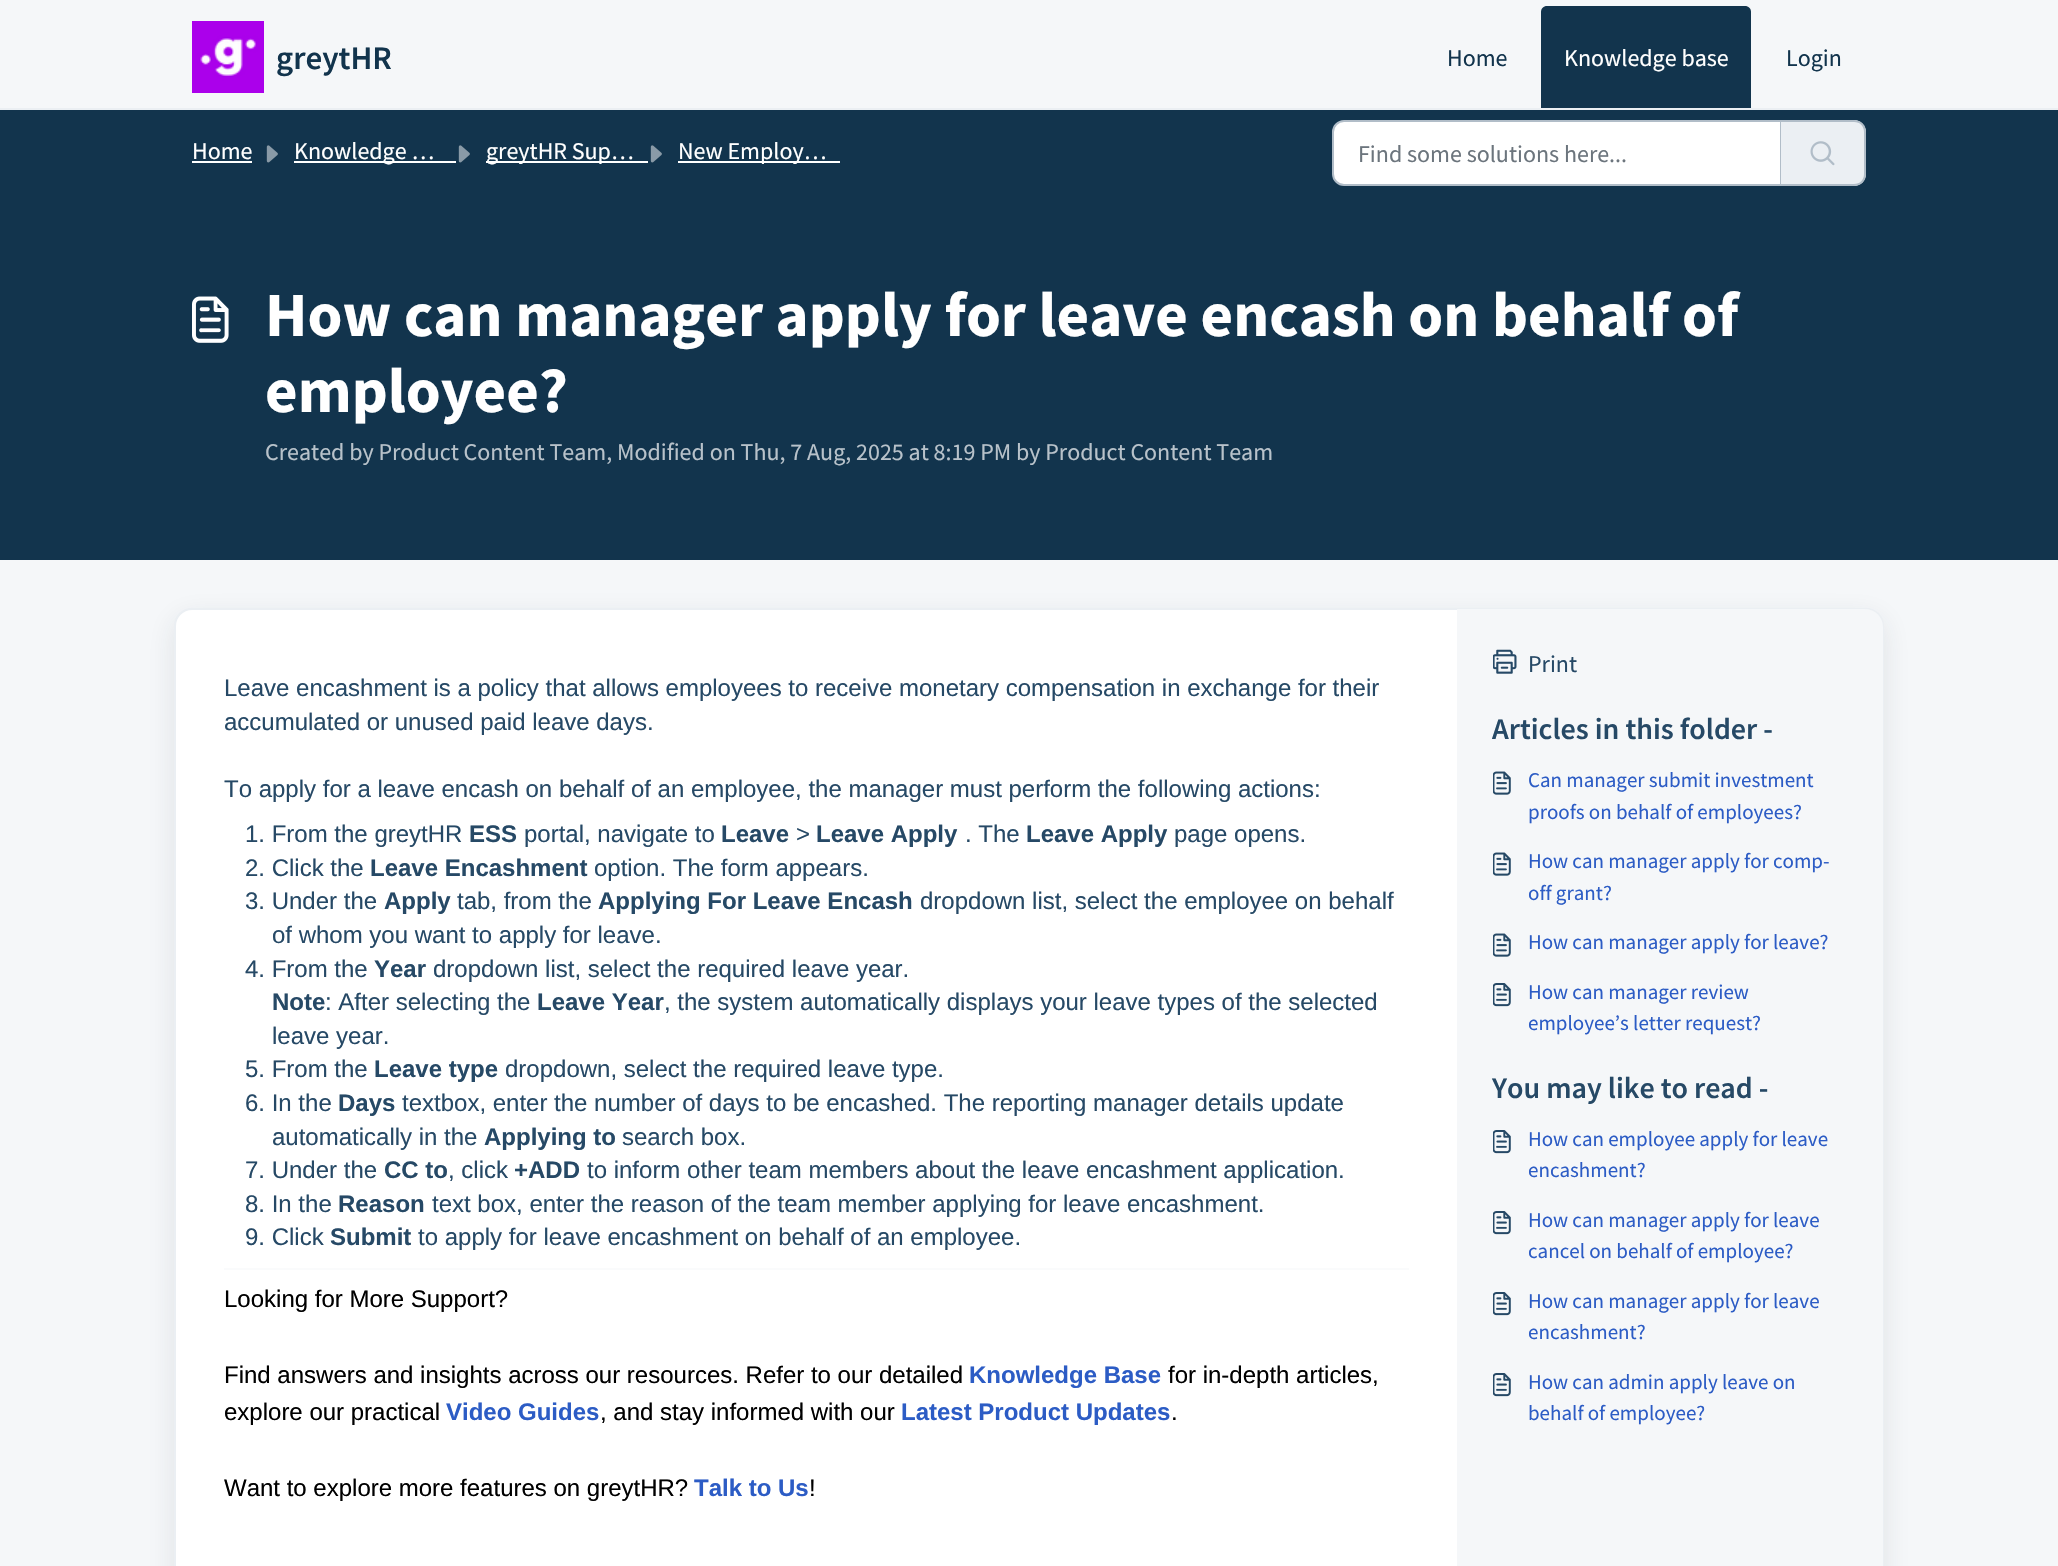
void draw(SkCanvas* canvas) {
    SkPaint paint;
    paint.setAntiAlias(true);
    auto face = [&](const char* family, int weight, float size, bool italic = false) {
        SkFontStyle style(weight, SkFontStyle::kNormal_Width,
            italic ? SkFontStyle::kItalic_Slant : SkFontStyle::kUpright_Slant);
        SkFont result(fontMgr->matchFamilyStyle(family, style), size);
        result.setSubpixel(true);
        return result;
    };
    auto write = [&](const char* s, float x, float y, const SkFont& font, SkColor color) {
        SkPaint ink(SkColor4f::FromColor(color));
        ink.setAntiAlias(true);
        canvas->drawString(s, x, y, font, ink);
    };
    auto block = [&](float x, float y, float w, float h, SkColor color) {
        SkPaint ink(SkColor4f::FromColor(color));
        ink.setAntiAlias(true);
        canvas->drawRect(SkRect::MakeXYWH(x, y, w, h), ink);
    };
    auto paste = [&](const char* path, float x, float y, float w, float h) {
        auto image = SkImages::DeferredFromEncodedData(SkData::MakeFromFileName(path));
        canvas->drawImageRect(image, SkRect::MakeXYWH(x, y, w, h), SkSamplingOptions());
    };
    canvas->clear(SkColorSetRGB(245, 247, 249));
    block(0, 108, 2058, 2, SkColorSetRGB(235, 239, 243));
    paste("pic1.png", 192, 21, 72, 72);
    auto kFont1 = face("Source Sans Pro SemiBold", 600, 33);
    write("greytHR", 276, 69, kFont1, SkColorSetRGB(18, 52, 77));
    auto kFont2 = face("Source Sans Pro", 400, 24);
    write("Home", 1447, 66, kFont2, SkColorSetRGB(18, 52, 77));
    paint.setColor(SkColorSetRGB(18, 52, 77));
    canvas->drawPath(SkPathBuilder().moveTo(1547, 6).lineTo(1745, 6).cubicTo(1748.5f, 6, 1751, 8.5f, 1751, 12).lineTo(1751, 108).lineTo(1541, 108).lineTo(1541, 12).cubicTo(1541, 8.5f, 1543.5f, 6, 1547, 6).close().detach(), paint);
    write("Knowledge base", 1564, 66, kFont2, SK_ColorWHITE);
    write("Login", 1786, 66, kFont2, SkColorSetRGB(18, 52, 77));
    block(0, 110, 2058, 450, SkColorSetRGB(18, 52, 77));
    write("Home", 192, 159, kFont2, SK_ColorWHITE);
    block(192, 161, 60, 2, SK_ColorWHITE);
    paste("pic2.png", 266, 145, 12, 18);
    block(294, 161, 162, 2, SK_ColorWHITE);
    write("Knowledge …", 294, 159, kFont2, SK_ColorWHITE);
    paste("pic2.png", 458, 145, 12, 18);
    block(486, 161, 162, 2, SK_ColorWHITE);
    write("greytHR Sup…", 486, 159, kFont2, SK_ColorWHITE);
    paste("pic2.png", 650, 145, 12, 18);
    block(678, 161, 162, 2, SK_ColorWHITE);
    write("New Employ…", 678, 159, kFont2, SK_ColorWHITE);
    paint.setColor(SK_ColorWHITE);
    canvas->drawPath(SkPathBuilder().moveTo(1344, 121).lineTo(1781, 121).lineTo(1781, 185).lineTo(1344, 185).cubicTo(1338, 185, 1333, 180, 1333, 174).lineTo(1333, 132).cubicTo(1333, 126, 1338, 121, 1344, 121).close().detach(), paint);
    paint.setStyle(SkPaint::kStroke_Style);
    paint.setStrokeWidth(2);
    paint.setColor(SkColorSetRGB(177, 189, 200));
    canvas->drawPath(SkPathBuilder().moveTo(1344, 121).lineTo(1781, 121).lineTo(1781, 185).lineTo(1344, 185).cubicTo(1338, 185, 1333, 180, 1333, 174).lineTo(1333, 132).cubicTo(1333, 126, 1338, 121, 1344, 121).close().detach(), paint);
    write("Find some solutions here...", 1358, 162, kFont2, SkColorSetRGB(108, 117, 125));
    paint.setStyle(SkPaint::kFill_Style);
    paint.setColor(SkColorSetRGB(235, 239, 243));
    canvas->drawPath(SkPathBuilder().moveTo(1781, 120).lineTo(1854, 120).cubicTo(1860.5f, 120, 1866, 125.5f, 1866, 132).lineTo(1866, 174).cubicTo(1866, 180.5f, 1860.5f, 186, 1854, 186).lineTo(1781, 186).close().detach(), paint);
    paint.setColor(SkColorSetRGB(177, 189, 200));
    canvas->drawPath(SkPathBuilder(SkPathFillType::kEvenOdd).moveTo(1780, 120).lineTo(1854, 120).cubicTo(1861, 120, 1866, 125, 1866, 132).lineTo(1866, 174).cubicTo(1866, 181, 1861, 186, 1854, 186).lineTo(1780, 186).close().moveTo(1780, 122).lineTo(1854, 122).cubicTo(1860, 122, 1864, 126, 1864, 132).lineTo(1864, 174).cubicTo(1864, 180, 1860, 184, 1854, 184).lineTo(1780, 184).close().detach(), paint);
    paste("pic3.png", 1810, 141, 25, 25);
    paste("pic4.png", 192, 296, 37, 47);
    auto kFont3 = face("Source Sans Pro", 700, 63);
    write("How can manager apply for leave encash on behalf of", 265, 336, kFont3, SK_ColorWHITE);
    write("employee?", 265, 412, kFont3, SK_ColorWHITE);
    write("Created by Product Content Team, Modified on Thu, 7 Aug, 2025 at 8:19 PM by Product Content Team", 265, 460, kFont2, SkColorSetRGB(184, 194, 202));
    paint.setColor(SkColorSetARGB(26, 39, 49, 58));
    paint.setMaskFilter(SkMaskFilter::MakeBlur(kNormal_SkBlurStyle, 14));
    canvas->drawRoundRect(SkRect::MakeXYWH(174, 617, 1710, 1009), 18, 18, paint);
    paint.setMaskFilter(nullptr);
    paint.setColor(SK_ColorWHITE);
    canvas->drawRoundRect(SkRect::MakeXYWH(175, 609, 1708, 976), 17, 17, paint);
    paint.setStyle(SkPaint::kStroke_Style);
    paint.setColor(SkColorSetRGB(235, 239, 243));
    canvas->drawRoundRect(SkRect::MakeXYWH(175, 609, 1708, 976), 17, 17, paint);
    auto kFont4 = face("Liberation Sans", 400, 24);
    write("Leave encashment is a policy that allows employees to receive monetary compensation in exchange for their", 224, 696, kFont4, SkColorSetRGB(38, 73, 102));
    write("accumulated or unused paid leave days.", 224, 730, kFont4, SkColorSetRGB(38, 73, 102));
    write("To apply for a leave encash on behalf of an employee, the manager must perform the following actions:", 224, 797, kFont4, SkColorSetRGB(38, 73, 102));
    write("1. From the greytHR", 245, 842, kFont4, SkColorSetRGB(38, 73, 102));
    auto kFont5 = face("Liberation Sans", 700, 24);
    write("ESS", 469, 842, kFont5, SkColorSetRGB(38, 73, 102));
    write("portal, navigate to", 524, 842, kFont4, SkColorSetRGB(38, 73, 102));
    write("Leave", 721, 842, kFont5, SkColorSetRGB(38, 73, 102));
    write(">", 796, 842, kFont4, SkColorSetRGB(38, 73, 102));
    write("Leave Apply", 816, 842, kFont5, SkColorSetRGB(38, 73, 102));
    write(". The", 965, 842, kFont4, SkColorSetRGB(38, 73, 102));
    write("Leave Apply", 1026, 842, kFont5, SkColorSetRGB(38, 73, 102));
    write("page opens.", 1174, 842, kFont4, SkColorSetRGB(38, 73, 102));
    write("2. Click the", 245, 876, kFont4, SkColorSetRGB(38, 73, 102));
    write("Leave Encashment", 370, 876, kFont5, SkColorSetRGB(38, 73, 102));
    write("option. The form appears.", 594, 876, kFont4, SkColorSetRGB(38, 73, 102));
    write("3. Under the", 245, 909, kFont4, SkColorSetRGB(38, 73, 102));
    write("Apply", 384, 909, kFont5, SkColorSetRGB(38, 73, 102));
    write("tab, from the", 457, 909, kFont4, SkColorSetRGB(38, 73, 102));
    write("Applying For Leave Encash", 598, 909, kFont5, SkColorSetRGB(38, 73, 102));
    write("dropdown list, select the employee on behalf", 920, 909, kFont4, SkColorSetRGB(38, 73, 102));
    write("of whom you want to apply for leave.", 272, 943, kFont4, SkColorSetRGB(38, 73, 102));
    write("4. From the", 245, 977, kFont4, SkColorSetRGB(38, 73, 102));
    write("Year", 374, 977, kFont5, SkColorSetRGB(38, 73, 102));
    write("dropdown list, select the required leave year.", 433, 977, kFont4, SkColorSetRGB(38, 73, 102));
    write("Note", 272, 1010, kFont5, SkColorSetRGB(38, 73, 102));
    write(": After selecting the", 325, 1010, kFont4, SkColorSetRGB(38, 73, 102));
    write("Leave Year", 537, 1010, kFont5, SkColorSetRGB(38, 73, 102));
    write(", the system automatically displays your leave types of the selected", 664, 1010, kFont4, SkColorSetRGB(38, 73, 102));
    write("leave year.", 272, 1044, kFont4, SkColorSetRGB(38, 73, 102));
    write("5. From the", 245, 1077, kFont4, SkColorSetRGB(38, 73, 102));
    write("Leave type", 374, 1077, kFont5, SkColorSetRGB(38, 73, 102));
    write("dropdown, select the required leave type.", 505, 1077, kFont4, SkColorSetRGB(38, 73, 102));
    write("6. In the", 245, 1111, kFont4, SkColorSetRGB(38, 73, 102));
    write("Days", 338, 1111, kFont5, SkColorSetRGB(38, 73, 102));
    write("textbox, enter the number of days to be encashed. The reporting manager details update", 402, 1111, kFont4, SkColorSetRGB(38, 73, 102));
    write("automatically in the", 272, 1145, kFont4, SkColorSetRGB(38, 73, 102));
    write("Applying to", 484, 1145, kFont5, SkColorSetRGB(38, 73, 102));
    write("search box.", 622, 1145, kFont4, SkColorSetRGB(38, 73, 102));
    write("7. Under the", 245, 1178, kFont4, SkColorSetRGB(38, 73, 102));
    write("CC to", 384, 1178, kFont5, SkColorSetRGB(38, 73, 102));
    write(", click", 448, 1178, kFont4, SkColorSetRGB(38, 73, 102));
    write("+ADD", 514, 1178, kFont5, SkColorSetRGB(38, 73, 102));
    write("to inform other team members about the leave encashment application.", 587, 1178, kFont4, SkColorSetRGB(38, 73, 102));
    write("8. In the", 245, 1212, kFont4, SkColorSetRGB(38, 73, 102));
    write("Reason", 338, 1212, kFont5, SkColorSetRGB(38, 73, 102));
    write("text box, enter the reason of the team member applying for leave encashment.", 432, 1212, kFont4, SkColorSetRGB(38, 73, 102));
    write("9. Click", 245, 1245, kFont4, SkColorSetRGB(38, 73, 102));
    write("Submit", 330, 1245, kFont5, SkColorSetRGB(38, 73, 102));
    write("to apply for leave encashment on behalf of an employee.", 418, 1245, kFont4, SkColorSetRGB(38, 73, 102));
    block(224, 1268, 1185, 2, SkColorSetRGB(250, 251, 252));
    write("Looking for More Support?", 224, 1307, kFont4, SK_ColorBLACK);
    write("Find answers and insights across our resources. Refer to our detailed", 224, 1383, kFont4, SK_ColorBLACK);
    write("Knowledge Base", 969, 1383, kFont5, SkColorSetRGB(44, 92, 197));
    write("for in-depth articles,", 1168, 1383, kFont4, SK_ColorBLACK);
    write("explore our practical", 224, 1420, kFont4, SK_ColorBLACK);
    write("Video Guides", 446, 1420, kFont5, SkColorSetRGB(44, 92, 197));
    write(", and stay informed with our", 600, 1420, kFont4, SK_ColorBLACK);
    write("Latest Product Updates", 901, 1420, kFont5, SkColorSetRGB(44, 92, 197));
    write(".", 1171, 1420, kFont4, SK_ColorBLACK);
    write("Want to explore more features on greytHR?", 224, 1496, kFont4, SK_ColorBLACK);
    write("Talk to Us", 694, 1496, kFont5, SkColorSetRGB(44, 92, 197));
    write("!", 809, 1496, kFont4, SK_ColorBLACK);
    paint.setStyle(SkPaint::kFill_Style);
    paint.setColor(SkColorSetRGB(245, 247, 249));
    canvas->drawPath(SkPathBuilder().moveTo(1457, 609).lineTo(1865, 609).cubicTo(1875, 609, 1883, 617, 1883, 627).lineTo(1883, 1566).cubicTo(1883, 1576, 1875, 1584, 1865, 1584).lineTo(1457, 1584).close().detach(), paint);
    paste("pic5.png", 1493, 649, 24, 25);
    write("Print", 1528, 672, kFont2, SkColorSetRGB(38, 73, 102));
    auto kFont6 = face("Source Sans Pro SemiBold", 600, 30);
    write("Articles in this folder -", 1492, 739, kFont6, SkColorSetRGB(38, 73, 102));
    paste("pic6.png", 1493, 771, 18, 24);
    auto kFont7 = face("Source Sans Pro", 400, 21);
    write("Can manager submit investment", 1528, 787, kFont7, SkColorSetRGB(44, 92, 197));
    write("proofs on behalf of employees?", 1528, 819, kFont7, SkColorSetRGB(44, 92, 197));
    paste("pic6.png", 1493, 852, 18, 24);
    write("How can manager apply for comp-", 1528, 868, kFont7, SkColorSetRGB(44, 92, 197));
    write("off grant?", 1528, 900, kFont7, SkColorSetRGB(44, 92, 197));
    paste("pic6.png", 1493, 933, 18, 24);
    write("How can manager apply for leave?", 1528, 949, kFont7, SkColorSetRGB(44, 92, 197));
    paste("pic7.png", 1493, 983, 18, 24);
    write("How can manager review", 1528, 999, kFont7, SkColorSetRGB(44, 92, 197));
    write("employee’s letter request?", 1528, 1030, kFont7, SkColorSetRGB(44, 92, 197));
    write("You may like to read -", 1492, 1098, kFont6, SkColorSetRGB(38, 73, 102));
    paste("pic7.png", 1493, 1130, 18, 24);
    write("How can employee apply for leave", 1528, 1146, kFont7, SkColorSetRGB(44, 92, 197));
    write("encashment?", 1528, 1177, kFont7, SkColorSetRGB(44, 92, 197));
    paste("pic7.png", 1493, 1211, 18, 24);
    write("How can manager apply for leave", 1528, 1227, kFont7, SkColorSetRGB(44, 92, 197));
    write("cancel on behalf of employee?", 1528, 1258, kFont7, SkColorSetRGB(44, 92, 197));
    paste("pic7.png", 1493, 1292, 18, 24);
    write("How can manager apply for leave", 1528, 1308, kFont7, SkColorSetRGB(44, 92, 197));
    write("encashment?", 1528, 1339, kFont7, SkColorSetRGB(44, 92, 197));
    paste("pic7.png", 1493, 1373, 18, 24);
    write("How can admin apply leave on", 1528, 1389, kFont7, SkColorSetRGB(44, 92, 197));
    write("behalf of employee?", 1528, 1420, kFont7, SkColorSetRGB(44, 92, 197));
}
